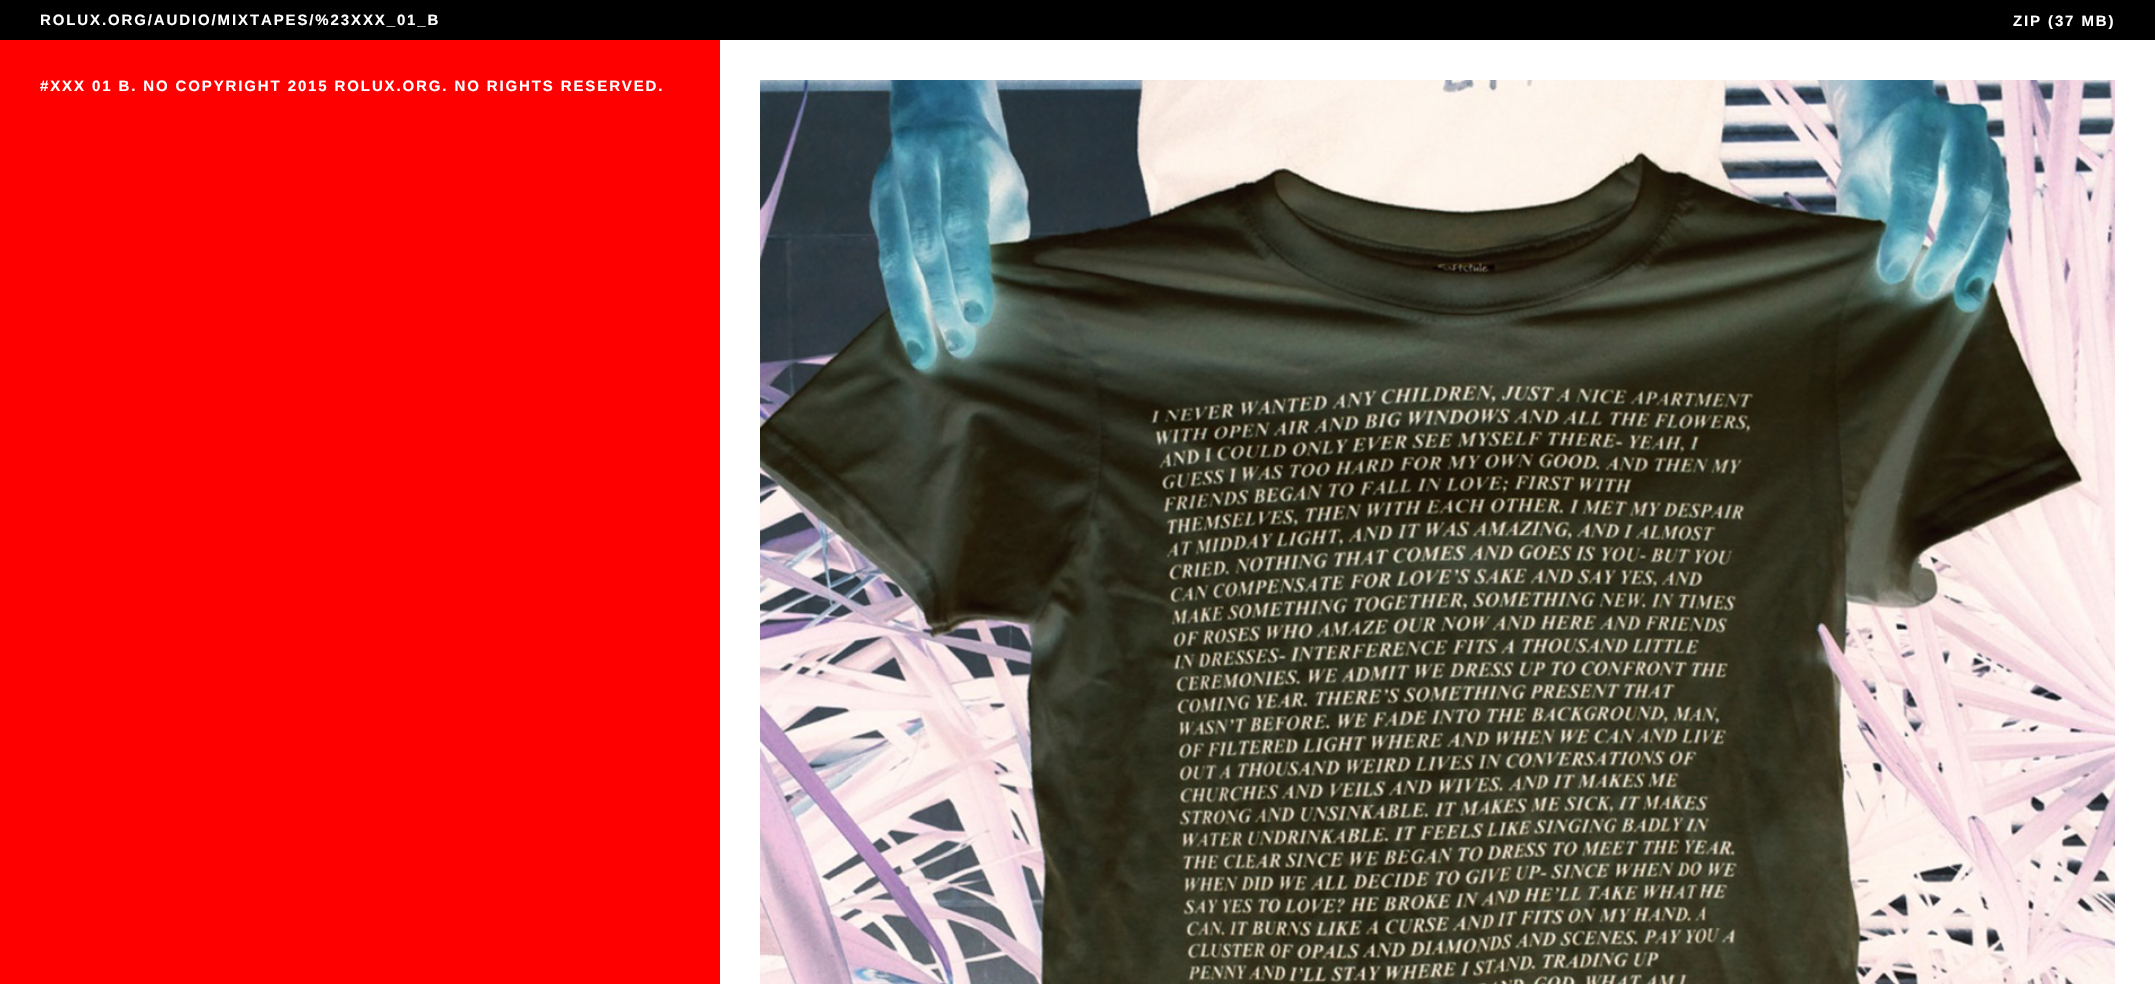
void draw(SkCanvas* canvas) {
    SkPaint paint;
    paint.setAntiAlias(true);
    auto face = [&](const char* family, int weight, float size, bool italic = false) {
        SkFontStyle style(weight, SkFontStyle::kNormal_Width,
            italic ? SkFontStyle::kItalic_Slant : SkFontStyle::kUpright_Slant);
        SkFont result(fontMgr->matchFamilyStyle(family, style), size);
        result.setSubpixel(true);
        return result;
    };
    auto writeSpaced = [&](const char* s, float x, float y, const SkFont& font, const SkPaint& ink, float letter, float word) {
        std::vector<SkGlyphID> glyphs(font.countText(s, strlen(s), SkTextEncoding::kUTF8));
        std::vector<float> xs(glyphs.size());
        font.textToGlyphs(s, strlen(s), SkTextEncoding::kUTF8, glyphs);
        font.getXPos(glyphs, xs, x);
        float extra = 0;
        for (size_t i = 0; i < glyphs.size(); i++) {
            xs[i] += extra;
            extra += letter + word * (glyphs[i] == font.unicharToGlyph(' '));
        }
        canvas->drawTextBlob(SkTextBlob::MakeFromPosHGlyphs(glyphs, xs, y, font), 0, 0, ink);
    };
    auto block = [&](float x, float y, float w, float h, SkColor color) {
        SkPaint ink(SkColor4f::FromColor(color));
        ink.setAntiAlias(true);
        canvas->drawRect(SkRect::MakeXYWH(x, y, w, h), ink);
    };
    auto paste = [&](const char* path, float x, float y, float w, float h) {
        auto image = SkImages::DeferredFromEncodedData(SkData::MakeFromFileName(path));
        canvas->drawImageRect(image, SkRect::MakeXYWH(x, y, w, h), SkSamplingOptions());
    };
    canvas->clear(SK_ColorBLACK);
    auto kFont1 = face("Liberation Sans", 700, 15);
    paint.setColor(SK_ColorWHITE);
    writeSpaced("ROLUX.ORG/AUDIO/MIXTAPES/%23XXX_01_B", 40, 25, kFont1, paint, 1.88f, 0);
    writeSpaced("ZIP (37 MB)", 2013, 26, kFont1, paint, 1.88f, 0);
    block(0, 40, 720, 944, SkColorSetRGB(255, 0, 0));
    writeSpaced("#XXX 01 B. NO COPYRIGHT 2015 ROLUX.ORG. NO RIGHTS RESERVED.", 40, 91, kFont1, paint, 1.88f, 0);
    block(720, 40, 1435, 944, SK_ColorWHITE);
    paste("pic1.png", 760, 80, 1355, 904);
}
